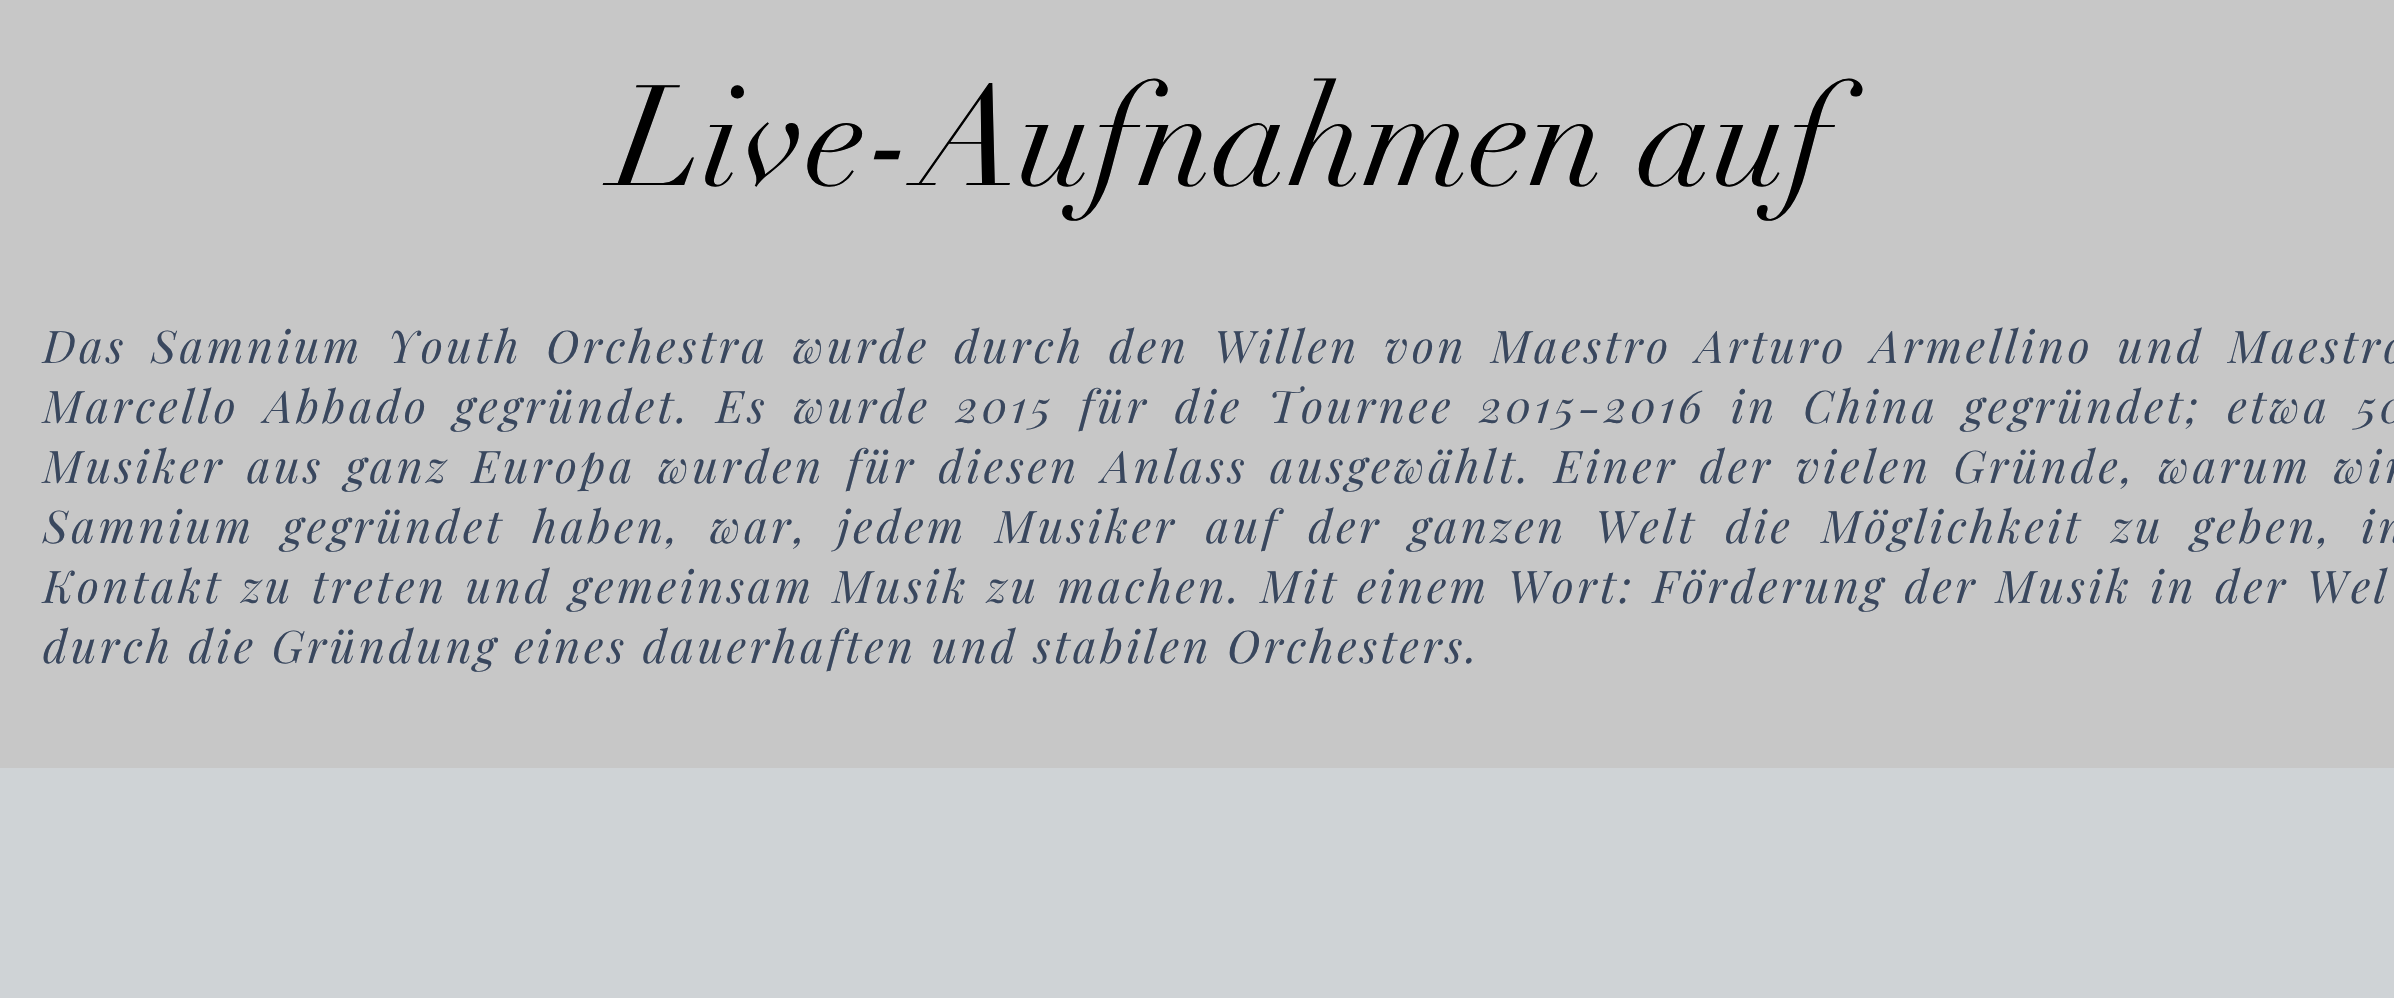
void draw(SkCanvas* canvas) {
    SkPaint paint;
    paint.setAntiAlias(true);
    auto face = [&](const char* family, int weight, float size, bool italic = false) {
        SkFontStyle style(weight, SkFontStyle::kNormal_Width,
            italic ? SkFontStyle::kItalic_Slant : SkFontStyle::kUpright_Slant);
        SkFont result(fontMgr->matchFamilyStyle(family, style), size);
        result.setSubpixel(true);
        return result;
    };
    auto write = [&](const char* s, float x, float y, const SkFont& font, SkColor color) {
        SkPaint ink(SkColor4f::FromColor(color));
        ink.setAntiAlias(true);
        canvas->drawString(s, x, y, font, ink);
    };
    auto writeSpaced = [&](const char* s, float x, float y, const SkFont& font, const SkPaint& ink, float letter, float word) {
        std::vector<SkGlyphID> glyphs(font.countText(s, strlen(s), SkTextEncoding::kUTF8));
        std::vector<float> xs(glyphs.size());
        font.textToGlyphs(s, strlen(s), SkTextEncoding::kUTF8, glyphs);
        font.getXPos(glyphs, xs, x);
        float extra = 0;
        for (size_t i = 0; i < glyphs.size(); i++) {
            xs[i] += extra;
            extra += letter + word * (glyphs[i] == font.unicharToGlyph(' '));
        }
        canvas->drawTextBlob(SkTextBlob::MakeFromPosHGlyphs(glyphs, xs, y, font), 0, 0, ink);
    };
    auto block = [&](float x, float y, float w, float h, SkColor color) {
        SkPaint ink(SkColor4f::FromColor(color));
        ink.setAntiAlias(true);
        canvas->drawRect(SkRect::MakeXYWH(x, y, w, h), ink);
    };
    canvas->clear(SkColorSetRGB(199, 199, 199));
    auto kFont1 = face("didot", 400, 140);
    write("Live-Aufnahmen auf", 615, 185, kFont1, SK_ColorBLACK);
    auto kFont2 = face("Playfair Display", 400, 45, true);
    paint.setColor(SkColorSetRGB(57, 71, 94));
    writeSpaced("Das Samnium Youth Orchestra wurde durch den Willen von Maestro Arturo Armellino und Maestro", 43, 363, kFont2, paint, 3.6f, 9.25f);
    writeSpaced("Marcello Abbado gegründet. Es wurde 2015 für die Tournee 2015-2016 in China gegründet; etwa 50", 43, 423, kFont2, paint, 3.6f, 10.25f);
    writeSpaced("Musiker aus ganz Europa wurden für diesen Anlass ausgewählt. Einer der vielen Gründe, warum wir", 43, 483, kFont2, paint, 3.6f, 6.9f);
    writeSpaced("Samnium gegründet haben, war, jedem Musiker auf der ganzen Welt die Möglichkeit zu geben, in", 43, 543, kFont2, paint, 3.6f, 13.25f);
    writeSpaced("Kontakt zu treten und gemeinsam Musik zu machen. Mit einem Wort: Förderung der Musik in der Wel", 43, 603, kFont2, paint, 3.6f, 2.9f);
    writeSpaced("durch die Gründung eines dauerhaften und stabilen Orchesters.", 43, 663, kFont2, paint, 3.6f, 0);
    block(0, 768, 2394, 230, SkColorSetRGB(207, 211, 214));
}
